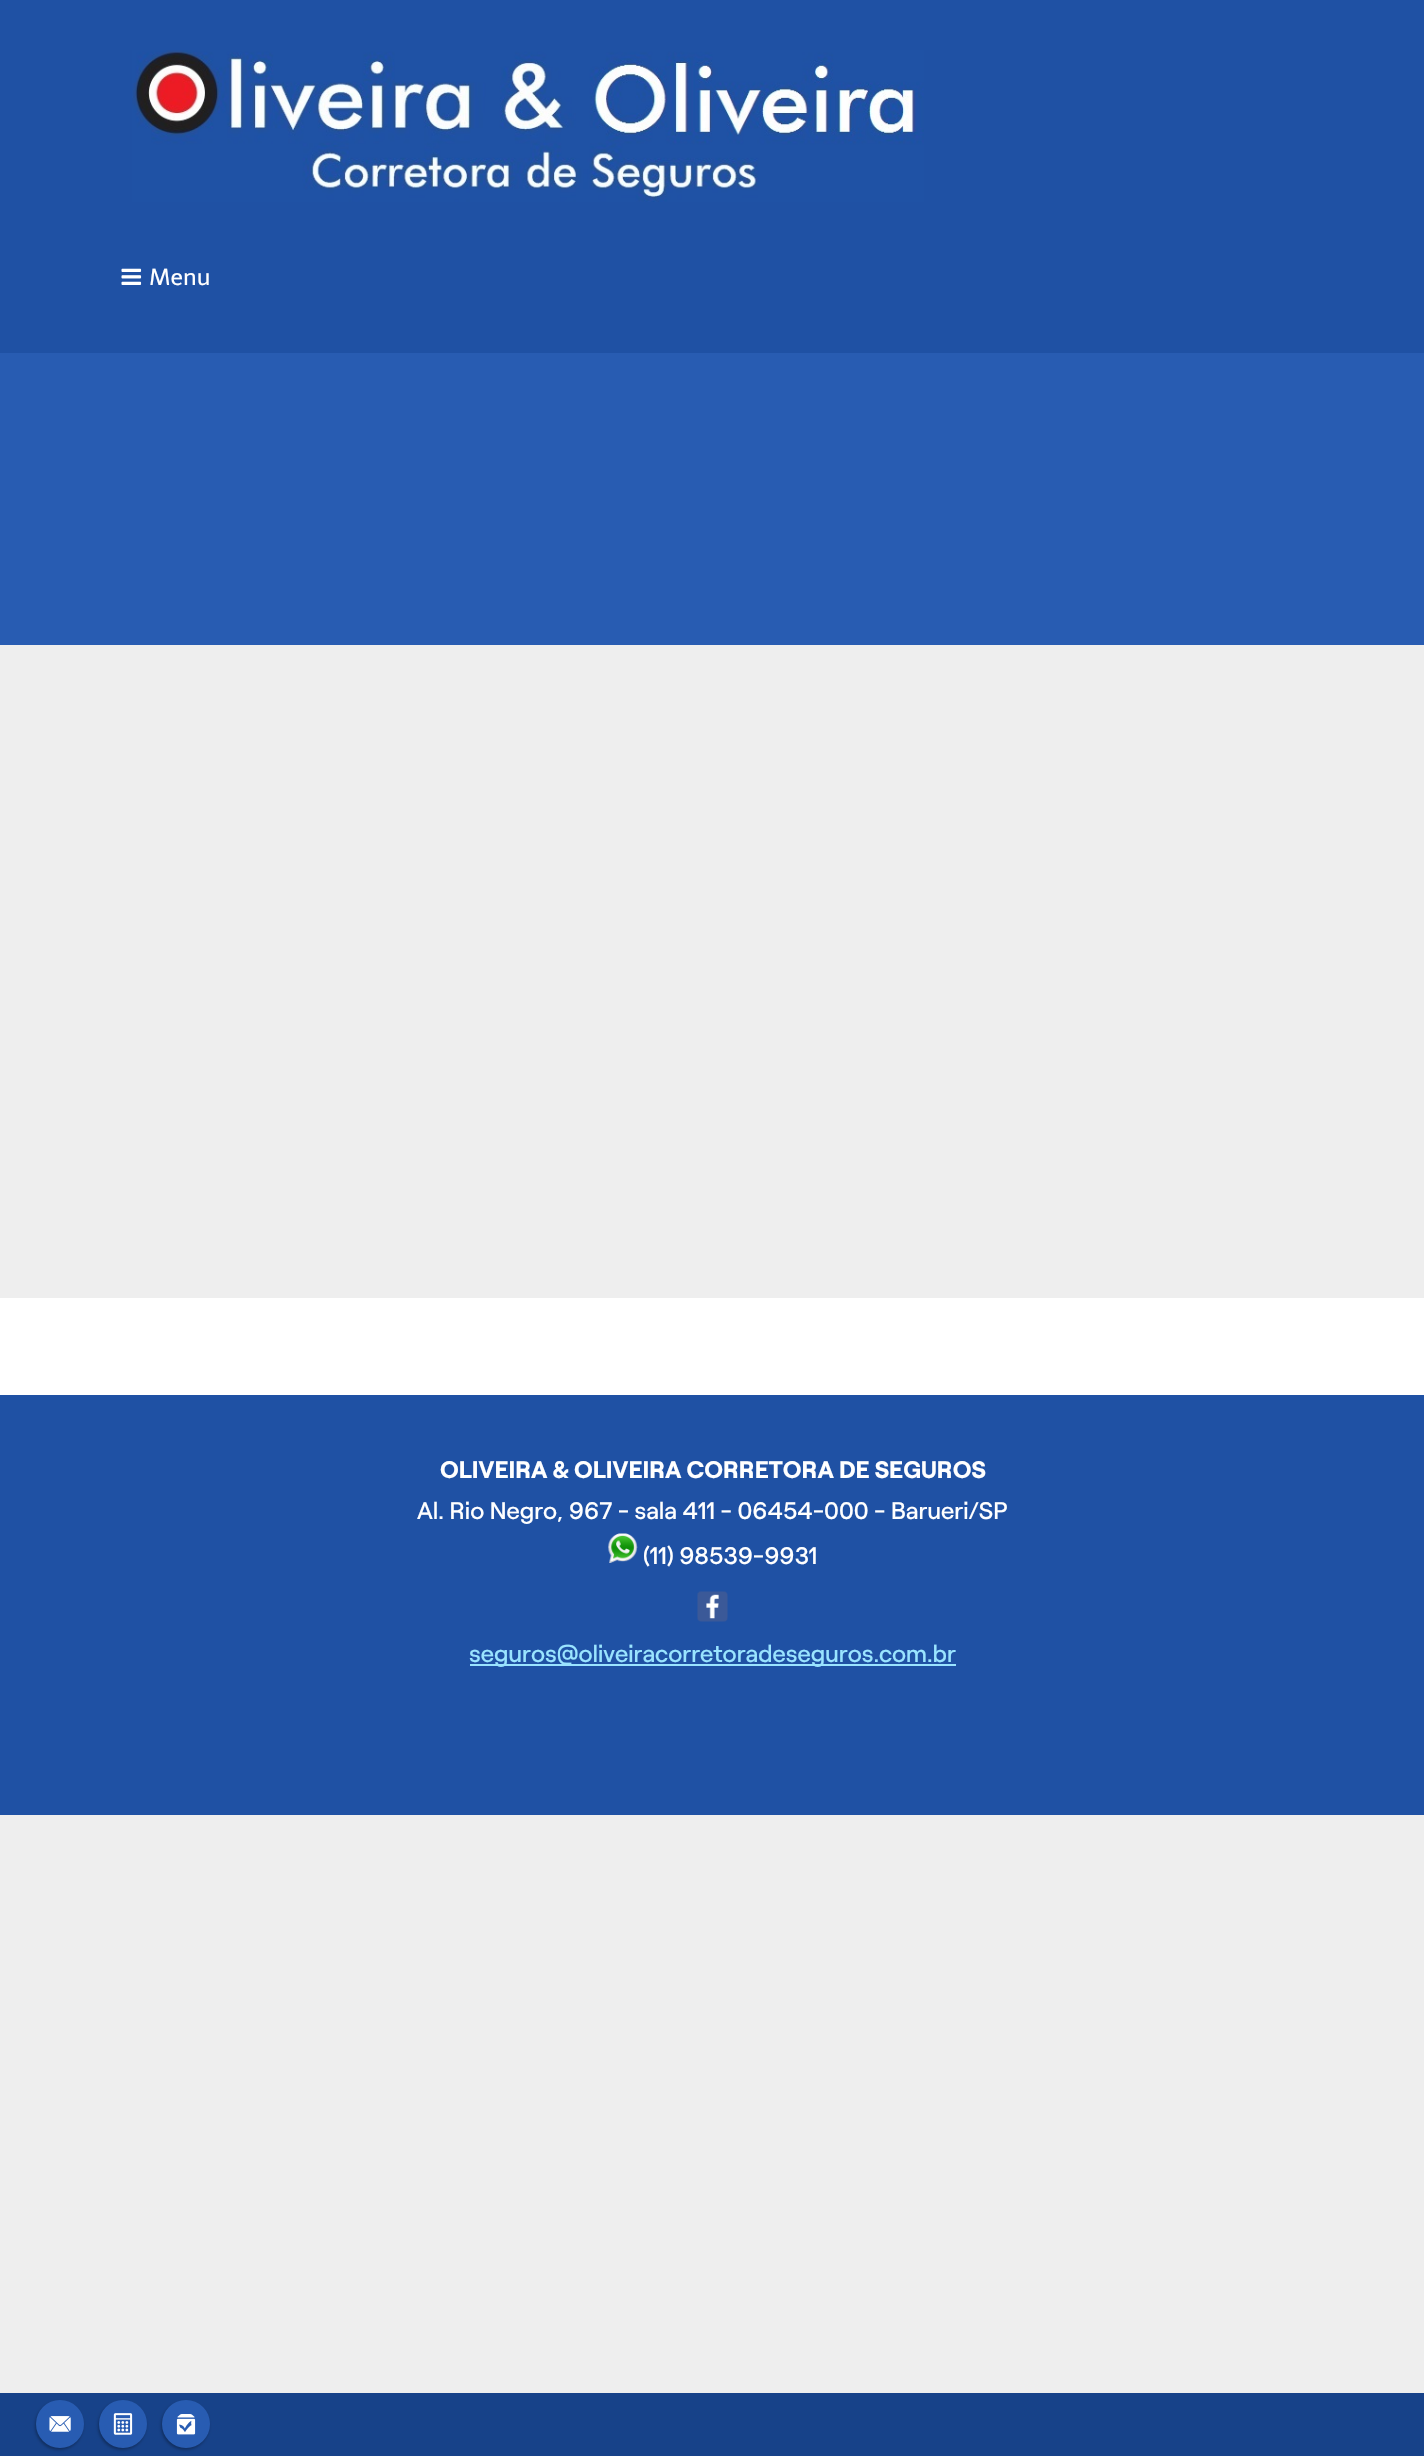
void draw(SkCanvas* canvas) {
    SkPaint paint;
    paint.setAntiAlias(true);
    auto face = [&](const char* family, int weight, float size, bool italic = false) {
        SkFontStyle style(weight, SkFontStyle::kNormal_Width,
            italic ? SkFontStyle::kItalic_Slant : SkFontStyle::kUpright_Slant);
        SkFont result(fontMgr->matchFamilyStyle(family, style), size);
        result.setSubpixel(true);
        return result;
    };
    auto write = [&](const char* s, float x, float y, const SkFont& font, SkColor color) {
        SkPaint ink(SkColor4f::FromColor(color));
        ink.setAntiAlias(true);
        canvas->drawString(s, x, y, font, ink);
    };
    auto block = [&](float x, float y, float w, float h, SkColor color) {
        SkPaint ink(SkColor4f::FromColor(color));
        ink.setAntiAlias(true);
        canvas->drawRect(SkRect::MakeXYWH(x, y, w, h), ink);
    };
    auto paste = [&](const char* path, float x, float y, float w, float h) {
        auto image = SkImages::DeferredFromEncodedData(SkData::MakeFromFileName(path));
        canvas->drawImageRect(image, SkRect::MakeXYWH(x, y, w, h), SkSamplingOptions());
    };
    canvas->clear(SkColorSetRGB(238, 238, 238));
    block(0, 353, 1424, 292, SkColorSetRGB(40, 92, 178));
    block(0, 0, 1424, 353, SkColorSetRGB(31, 81, 164));
    paste("pic1.png", 132, 50, 792, 152);
    paste("pic2.png", 121, 268, 21, 17);
    auto kFont1 = face("Telex", 400, 23);
    write("Menu", 149, 285, kFont1, SK_ColorWHITE);
    block(0, 1298, 1424, 97, SK_ColorWHITE);
    block(0, 1395, 1424, 420, SkColorSetRGB(31, 81, 164));
    auto kFont2 = face("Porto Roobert", 700, 24);
    write("OLIVEIRA & OLIVEIRA CORRETORA DE SEGUROS", 440, 1478, kFont2, SK_ColorWHITE);
    auto kFont3 = face("Porto Roobert", 500, 24);
    write("Al. Rio Negro, 967 - sala 411 - 06454-000 - Barueri/SP", 417, 1519, kFont3, SK_ColorWHITE);
    paste("pic3.png", 608, 1533, 30, 30);
    write("(11) 98539-9931", 643, 1564, kFont3, SK_ColorWHITE);
    paste("pic4.png", 697, 1591, 31, 31);
    block(470, 1664, 486, 2, SkColorSetRGB(154, 228, 255));
    write("seguros@oliveiracorretoradeseguros.com.br", 469, 1662, kFont3, SkColorSetRGB(154, 228, 255));
    block(0, 2393, 1424, 63, SkColorSetRGB(23, 66, 137));
    paint.setColor(SkColorSetARGB(77, 0, 0, 0));
    paint.setMaskFilter(SkMaskFilter::MakeBlur(kNormal_SkBlurStyle, 1.5f));
    canvas->drawRoundRect(SkRect::MakeXYWH(35, 2402, 48, 48), 24, 24, paint);
    paint.setMaskFilter(nullptr);
    paint.setColor(SkColorSetRGB(40, 92, 178));
    canvas->drawCircle(60, 2424, 24, paint);
    paste("pic5.png", 49, 2416, 22, 16);
    paint.setColor(SkColorSetARGB(77, 0, 0, 0));
    paint.setMaskFilter(SkMaskFilter::MakeBlur(kNormal_SkBlurStyle, 1.5f));
    canvas->drawRoundRect(SkRect::MakeXYWH(98, 2402, 48, 48), 24, 24, paint);
    paint.setMaskFilter(nullptr);
    paint.setColor(SkColorSetRGB(40, 92, 178));
    canvas->drawCircle(123, 2424, 24, paint);
    paste("pic6.png", 113, 2413, 20, 22);
    paint.setColor(SkColorSetARGB(77, 0, 0, 0));
    paint.setMaskFilter(SkMaskFilter::MakeBlur(kNormal_SkBlurStyle, 1.5f));
    canvas->drawRoundRect(SkRect::MakeXYWH(161, 2402, 48, 48), 24, 24, paint);
    paint.setMaskFilter(nullptr);
    paint.setColor(SkColorSetRGB(40, 92, 178));
    canvas->drawCircle(186, 2424, 24, paint);
    paste("pic7.png", 176, 2414, 20, 21);
}
